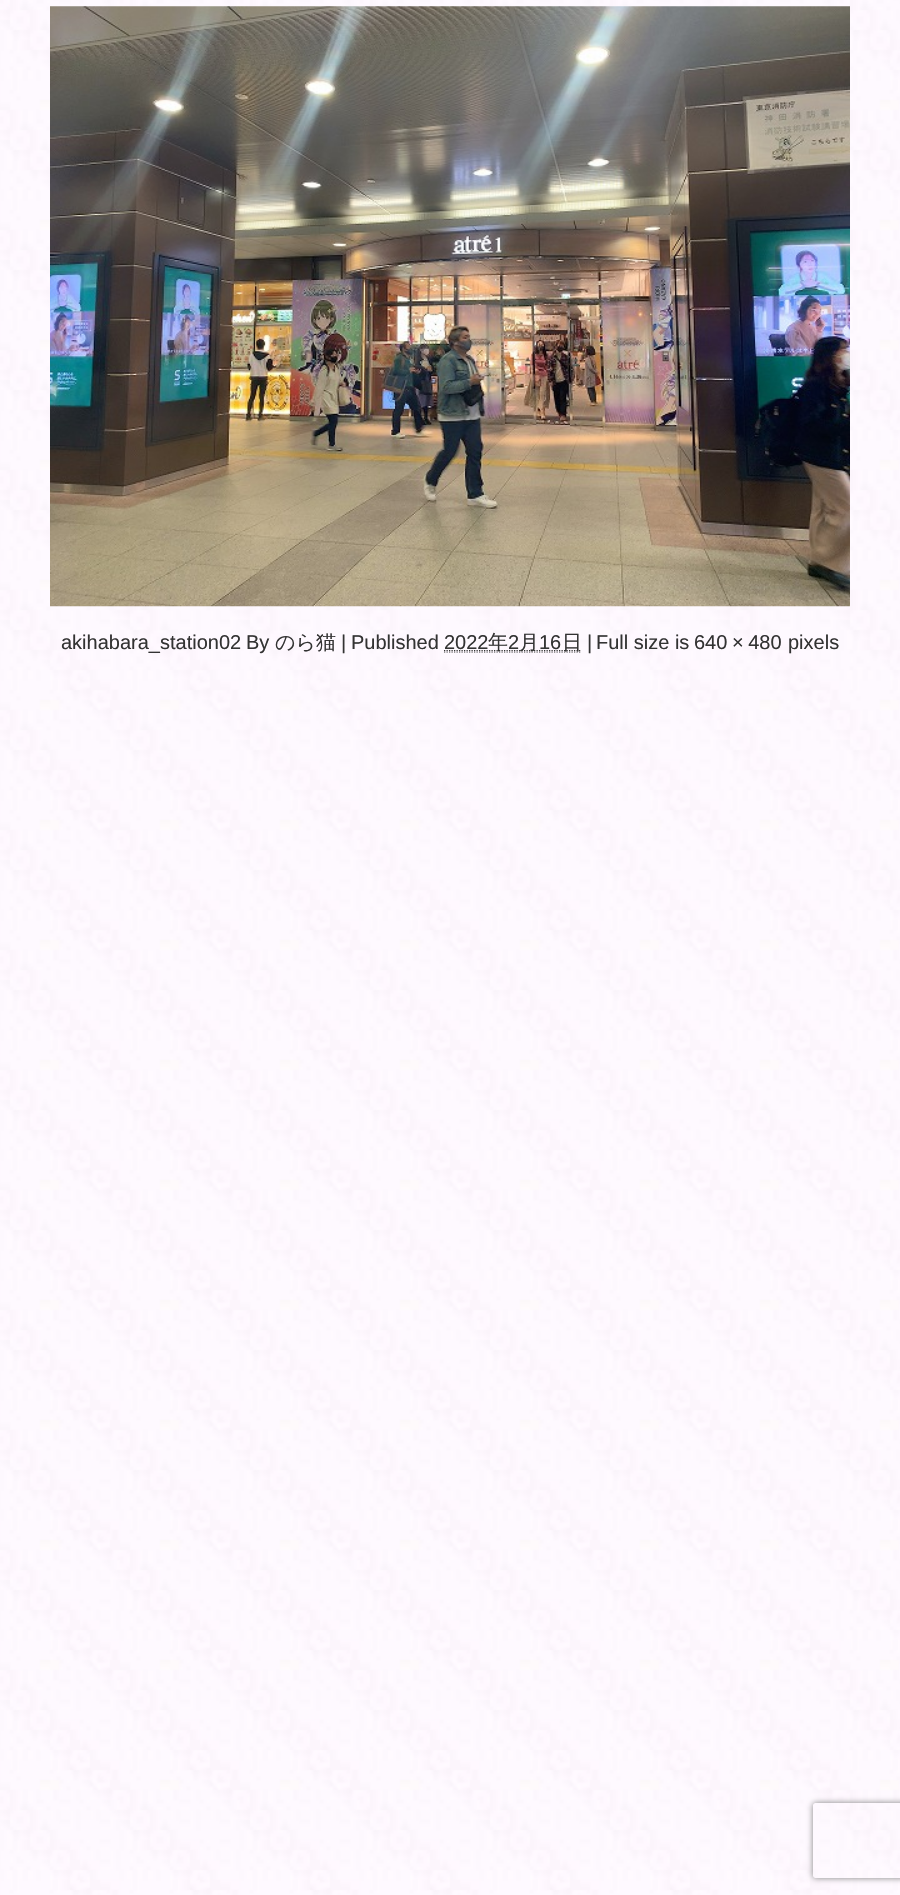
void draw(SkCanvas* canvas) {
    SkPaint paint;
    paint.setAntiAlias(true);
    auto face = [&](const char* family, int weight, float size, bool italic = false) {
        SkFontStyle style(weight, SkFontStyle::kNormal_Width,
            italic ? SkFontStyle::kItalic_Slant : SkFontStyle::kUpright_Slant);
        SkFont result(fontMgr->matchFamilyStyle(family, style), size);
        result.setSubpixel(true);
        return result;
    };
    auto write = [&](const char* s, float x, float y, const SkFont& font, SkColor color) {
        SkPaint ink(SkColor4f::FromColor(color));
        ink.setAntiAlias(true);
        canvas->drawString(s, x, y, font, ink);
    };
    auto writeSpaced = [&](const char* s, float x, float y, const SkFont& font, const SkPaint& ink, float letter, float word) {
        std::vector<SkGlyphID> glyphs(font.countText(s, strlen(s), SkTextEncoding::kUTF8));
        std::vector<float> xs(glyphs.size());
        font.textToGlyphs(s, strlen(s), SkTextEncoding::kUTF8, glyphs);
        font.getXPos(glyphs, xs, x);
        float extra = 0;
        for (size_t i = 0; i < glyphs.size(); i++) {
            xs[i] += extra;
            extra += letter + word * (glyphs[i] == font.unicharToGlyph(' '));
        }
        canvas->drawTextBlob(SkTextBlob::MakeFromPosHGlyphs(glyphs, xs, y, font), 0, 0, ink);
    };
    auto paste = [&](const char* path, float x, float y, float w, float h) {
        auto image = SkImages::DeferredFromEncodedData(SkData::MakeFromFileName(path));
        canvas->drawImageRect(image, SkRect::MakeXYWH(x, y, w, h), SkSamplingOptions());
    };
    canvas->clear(SK_ColorWHITE);
    paste("pic1.png", 0, 0, 900, 1895);
    paste("pic2.png", 50, 6, 800, 601);
    auto kFont1 = face("Liberation Sans", 400, 20);
    write("akihabara_station02", 61, 649, kFont1, SkColorSetRGB(51, 51, 51));
    write("By", 246, 649, kFont1, SkColorSetRGB(51, 51, 51));
    auto kFont2 = face("WenQuanYi Zen Hei", 500, 20);
    write("のら猫", 275, 649, kFont2, SkColorSetRGB(51, 51, 51));
    write("|", 341, 649, kFont1, SkColorSetRGB(51, 51, 51));
    write("Published", 351, 649, kFont1, SkColorSetRGB(51, 51, 51));
    paint.setStyle(SkPaint::kStroke_Style);
    paint.setStrokeWidth(1.2f);
    paint.setColor(SkColorSetRGB(51, 51, 51));
    paint.setPathEffect(SkDashPathEffect::Make({{1.25f, 1.25f}}, 0));
    canvas->drawPath(SkPathBuilder().moveTo(444, 652).lineTo(581, 652).detach(), paint);
    paint.setPathEffect(nullptr);
    paint.setPathEffect(SkDashPathEffect::Make({{1.25f, 1.25f}}, 0));
    canvas->drawPath(SkPathBuilder().moveTo(444, 650.5f).lineTo(581.5f, 650.5f).detach(), paint);
    paint.setPathEffect(nullptr);
    write("2022", 444, 649, kFont1, SkColorSetRGB(51, 51, 51));
    write("年", 488, 649, kFont2, SkColorSetRGB(51, 51, 51));
    write("2", 508, 649, kFont1, SkColorSetRGB(51, 51, 51));
    write("月", 519, 649, kFont2, SkColorSetRGB(51, 51, 51));
    write("16", 539, 649, kFont1, SkColorSetRGB(51, 51, 51));
    write("日", 562, 649, kFont2, SkColorSetRGB(51, 51, 51));
    write("|", 587, 649, kFont1, SkColorSetRGB(51, 51, 51));
    write("Full size is", 596, 649, kFont1, SkColorSetRGB(51, 51, 51));
    paint.setStyle(SkPaint::kFill_Style);
    writeSpaced("640 × 480", 694, 649, kFont1, paint, 0, -1);
    write("pixels", 788, 649, kFont1, SkColorSetRGB(51, 51, 51));
    canvas->save();
    canvas->clipPath(SkPathBuilder(SkPathFillType::kEvenOdd).moveTo(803, 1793).lineTo(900, 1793).lineTo(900, 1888).lineTo(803, 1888).close().moveTo(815.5f, 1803).lineTo(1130.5f, 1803).cubicTo(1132, 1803, 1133, 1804, 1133, 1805.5f).lineTo(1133, 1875.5f).cubicTo(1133, 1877, 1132, 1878, 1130.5f, 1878).lineTo(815.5f, 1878).cubicTo(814, 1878, 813, 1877, 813, 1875.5f).lineTo(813, 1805.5f).cubicTo(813, 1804, 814, 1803, 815.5f, 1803).close().detach(), true);
    paint.setColor(SkColorSetRGB(128, 128, 128));
    paint.setMaskFilter(SkMaskFilter::MakeBlur(kNormal_SkBlurStyle, 3));
    canvas->drawRoundRect(SkRect::MakeXYWH(813, 1803, 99, 75), 2.5f, 2.5f, paint);
    paint.setMaskFilter(nullptr);
    canvas->restore();
}
